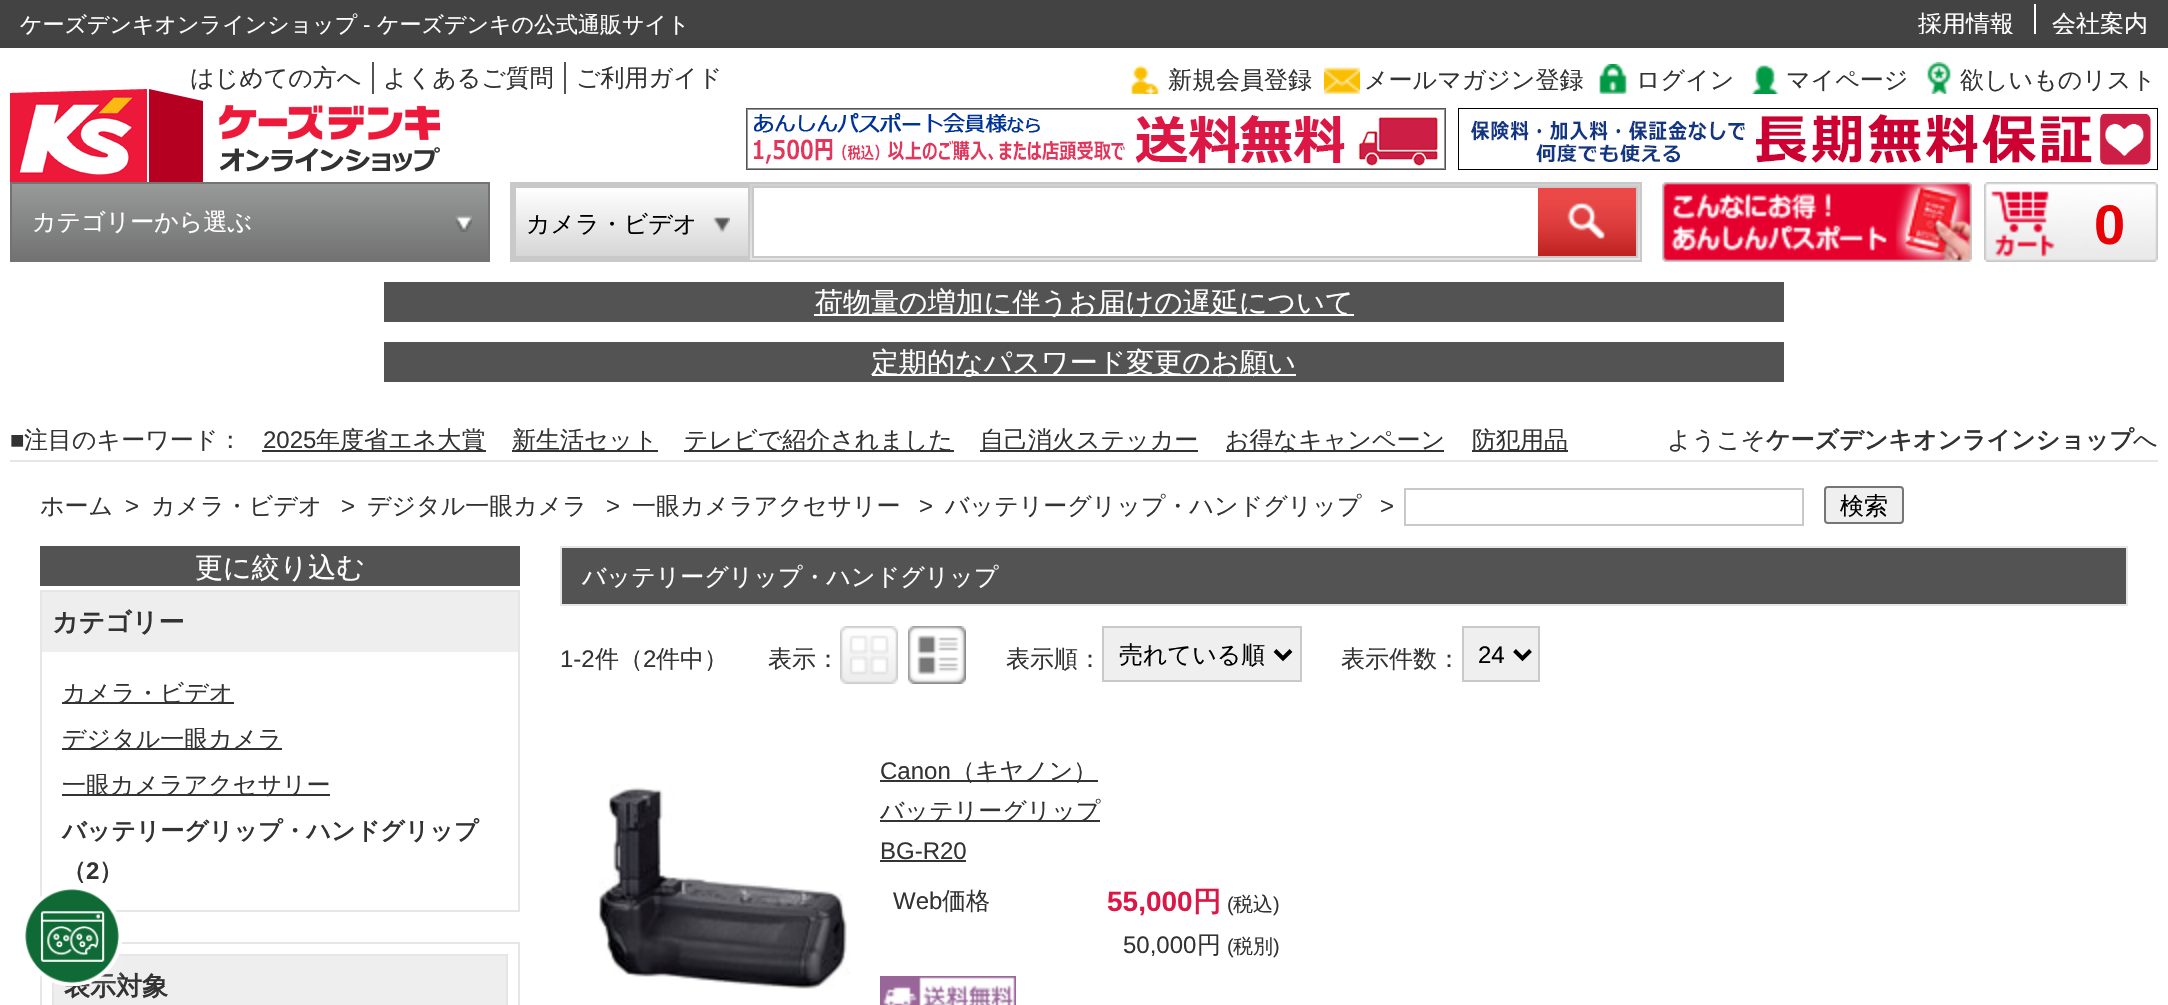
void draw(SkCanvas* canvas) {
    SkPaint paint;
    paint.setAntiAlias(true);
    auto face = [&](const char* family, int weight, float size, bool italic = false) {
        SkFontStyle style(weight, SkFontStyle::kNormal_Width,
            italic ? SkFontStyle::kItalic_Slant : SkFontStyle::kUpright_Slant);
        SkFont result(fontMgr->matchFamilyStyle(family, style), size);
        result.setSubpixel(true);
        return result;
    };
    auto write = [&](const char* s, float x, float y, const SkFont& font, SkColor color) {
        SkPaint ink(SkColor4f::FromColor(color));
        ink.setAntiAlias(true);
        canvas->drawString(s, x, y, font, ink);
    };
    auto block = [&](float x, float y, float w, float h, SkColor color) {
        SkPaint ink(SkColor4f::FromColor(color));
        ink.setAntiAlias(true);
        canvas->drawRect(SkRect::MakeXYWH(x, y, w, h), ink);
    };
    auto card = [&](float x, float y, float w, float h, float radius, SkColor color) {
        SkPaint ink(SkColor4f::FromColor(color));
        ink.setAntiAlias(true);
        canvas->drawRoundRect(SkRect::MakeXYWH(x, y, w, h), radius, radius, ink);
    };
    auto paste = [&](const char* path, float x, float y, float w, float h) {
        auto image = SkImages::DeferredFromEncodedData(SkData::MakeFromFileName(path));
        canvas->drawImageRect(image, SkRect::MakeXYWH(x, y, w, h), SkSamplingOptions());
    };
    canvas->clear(SK_ColorWHITE);
    block(0, 0, 2168, 48, SkColorSetRGB(67, 67, 67));
    auto kFont1 = face("WenQuanYi Zen Hei", 500, 22);
    write("ケーズデンキオンラインショップ", 20, 32, kFont1, SK_ColorWHITE);
    auto kFont2 = face("Liberation Sans", 400, 22);
    write("-", 363, 32, kFont2, SK_ColorWHITE);
    write("ケーズデンキの公式通販サイト", 377, 32, kFont1, SK_ColorWHITE);
    block(2034, 4, 2, 30, SK_ColorWHITE);
    canvas->save();
    canvas->clipRect(SkRect::MakeXYWH(1918, 4, 230, 30));
    auto kFont3 = face("WenQuanYi Zen Hei", 500, 24);
    write("採用情報", 1918, 32, kFont3, SK_ColorWHITE);
    write("会社案内", 2052, 32, kFont3, SK_ColorWHITE);
    canvas->restore();
    paste("pic6.png", 10, 89, 430, 93);
    block(372, 62, 2, 32, SkColorSetRGB(83, 83, 83));
    write("はじめての方へ", 190, 86, kFont3, SkColorSetRGB(51, 51, 51));
    block(564, 62, 2, 32, SkColorSetRGB(83, 83, 83));
    write("よくあるご質問", 383, 86, kFont3, SkColorSetRGB(51, 51, 51));
    write("ご利用ガイド", 576, 86, kFont3, SkColorSetRGB(51, 51, 51));
    paste("pic1.png", 1131, 65, 28, 29);
    write("新規会員登録", 1168, 88, kFont3, SkColorSetRGB(51, 51, 51));
    paste("pic2.png", 1324, 67, 36, 27);
    write("メールマガジン登録", 1364, 88, kFont3, SkColorSetRGB(51, 51, 51));
    paste("pic3.png", 1599, 64, 28, 30);
    write("ログイン", 1636, 88, kFont3, SkColorSetRGB(51, 51, 51));
    paste("pic4.png", 1751, 65, 28, 29);
    write("マイページ", 1786, 88, kFont3, SkColorSetRGB(51, 51, 51));
    paste("pic5.png", 1927, 62, 24, 32);
    write("欲しいものリスト", 1960, 88, kFont3, SkColorSetRGB(51, 51, 51));
    paste("pic7.png", 746, 108, 700, 62);
    paste("pic8.png", 1458, 108, 700, 62);
    {
        const SkColor colors[] = {SkColorSetRGB(152, 153, 153), SkColorSetRGB(114, 114, 114)};
        const float stops[] = {0, 1};
        const SkPoint ends[] = {{250, 184}, {250, 260}};
        paint.setShader(SkGradientShader::MakeLinear(ends, colors, stops, 2, SkTileMode::kClamp));
        paint.setAlpha(255);
    }
    canvas->drawRect(SkRect::MakeXYWH(12, 184, 476, 76), paint);
    paint.setStyle(SkPaint::kStroke_Style);
    paint.setStrokeWidth(2);
    paint.setShader(nullptr);
    paint.setColor(SkColorSetRGB(115, 115, 115));
    canvas->drawRect(SkRect::MakeXYWH(11, 183, 478, 78), paint);
    write("カテゴリーから選ぶ", 32, 230, kFont3, SK_ColorWHITE);
    paste("pic9.png", 455, 215, 17, 17);
    paint.setStyle(SkPaint::kFill_Style);
    {
        const SkColor colors[] = {SK_ColorWHITE, SkColorSetRGB(214, 214, 214)};
        const float stops[] = {0, 1};
        const SkPoint ends[] = {{632, 188}, {632, 256}};
        paint.setShader(SkGradientShader::MakeLinear(ends, colors, stops, 2, SkTileMode::kClamp));
        paint.setAlpha(255);
    }
    canvas->drawRect(SkRect::MakeXYWH(516, 192, 232, 64), paint);
    block(510, 182, 238, 6, SkColorSetRGB(201, 201, 201));
    block(510, 256, 238, 6, SkColorSetRGB(201, 201, 201));
    block(510, 182, 6, 80, SkColorSetRGB(201, 201, 201));
    write("カメラ・ビデオ", 526, 232, kFont3, SK_ColorBLACK);
    paste("pic10.png", 713, 217, 17, 16);
    {
        const SkColor colors[] = {SkColorSetRGB(210, 210, 210), SkColorSetRGB(229, 229, 230)};
        const float stops[] = {0, 1};
        const SkPoint ends[] = {{1195, 184}, {1195, 260}};
        paint.setShader(SkGradientShader::MakeLinear(ends, colors, stops, 2, SkTileMode::kClamp));
        paint.setAlpha(255);
    }
    canvas->drawRect(SkRect::MakeXYWH(750, 184, 890, 76), paint);
    paint.setStyle(SkPaint::kStroke_Style);
    paint.setShader(nullptr);
    paint.setColor(SkColorSetRGB(201, 201, 201));
    canvas->drawRect(SkRect::MakeXYWH(749, 183, 892, 78), paint);
    block(754, 188, 784, 68, SK_ColorWHITE);
    canvas->drawRect(SkRect::MakeXYWH(753, 187, 884, 70), paint);
    paste("pic11.png", 1538, 188, 98, 68);
    paste("pic12.png", 1662, 182, 310, 80);
    paste("pic13.png", 1984, 182, 174, 80);
    auto kFont4 = face("Liberation Sans", 700, 56);
    write("0", 2094, 244, kFont4, SkColorSetRGB(231, 0, 6));
    block(384, 282, 1400, 40, SkColorSetRGB(83, 83, 83));
    block(814, 314, 540, 2, SK_ColorWHITE);
    auto kFont5 = face("WenQuanYi Zen Hei", 500, 28);
    write("荷物量の増加に伴うお届けの遅延について", 815, 312, kFont5, SK_ColorWHITE);
    block(384, 342, 1400, 40, SkColorSetRGB(83, 83, 83));
    block(872, 374, 424, 2, SK_ColorWHITE);
    write("定期的なパスワード変更のお願い", 871, 372, kFont5, SK_ColorWHITE);
    block(10, 460, 2148, 2, SkColorSetRGB(230, 230, 230));
    auto kFont6 = face("Liberation Sans", 400, 24);
    write("■", 10, 448, kFont6, SkColorSetRGB(51, 51, 51));
    write("注目のキーワード：", 24, 448, kFont3, SkColorSetRGB(51, 51, 51));
    write("2025", 263, 448, kFont6, SkColorSetRGB(51, 51, 51));
    block(262, 450, 224, 2, SkColorSetRGB(51, 51, 51));
    write("年度省エネ大賞", 316, 448, kFont3, SkColorSetRGB(51, 51, 51));
    block(512, 450, 146, 2, SkColorSetRGB(51, 51, 51));
    write("新生活セット", 512, 448, kFont3, SkColorSetRGB(51, 51, 51));
    block(684, 450, 270, 2, SkColorSetRGB(51, 51, 51));
    write("テレビで紹介されました", 684, 448, kFont3, SkColorSetRGB(51, 51, 51));
    block(980, 450, 218, 2, SkColorSetRGB(51, 51, 51));
    write("自己消火ステッカー", 980, 448, kFont3, SkColorSetRGB(51, 51, 51));
    block(1226, 450, 218, 2, SkColorSetRGB(51, 51, 51));
    write("お得なキャンペーン", 1225, 448, kFont3, SkColorSetRGB(51, 51, 51));
    block(1472, 450, 96, 2, SkColorSetRGB(51, 51, 51));
    write("防犯用品", 1472, 448, kFont3, SkColorSetRGB(51, 51, 51));
    write("ようこそ", 1667, 448, kFont3, SkColorSetRGB(51, 51, 51));
    auto kFont7 = face("WenQuanYi Zen Hei", 700, 24);
    write("ケーズデンキオンラインショップ", 1766, 448, kFont7, SkColorSetRGB(51, 51, 51));
    write("へ", 2133, 448, kFont3, SkColorSetRGB(51, 51, 51));
    write("ホーム", 40, 514, kFont3, SkColorSetRGB(51, 51, 51));
    write(">", 125, 514, kFont6, SkColorSetRGB(51, 51, 51));
    write("カメラ・ビデオ", 151, 514, kFont3, SkColorSetRGB(51, 51, 51));
    write(">", 341, 514, kFont6, SkColorSetRGB(51, 51, 51));
    write("デジタル一眼カメラ", 367, 514, kFont3, SkColorSetRGB(51, 51, 51));
    write(">", 606, 514, kFont6, SkColorSetRGB(51, 51, 51));
    write("一眼カメラアクセサリー", 632, 514, kFont3, SkColorSetRGB(51, 51, 51));
    write(">", 919, 514, kFont6, SkColorSetRGB(51, 51, 51));
    write("バッテリーグリップ・ハンドグリップ", 945, 514, kFont3, SkColorSetRGB(51, 51, 51));
    write(">", 1380, 514, kFont6, SkColorSetRGB(51, 51, 51));
    canvas->drawRect(SkRect::MakeXYWH(1405, 489, 398, 36), paint);
    paint.setStyle(SkPaint::kFill_Style);
    paint.setColor(SkColorSetRGB(239, 239, 239));
    canvas->drawRoundRect(SkRect::MakeXYWH(1825, 487, 78, 36), 3, 3, paint);
    paint.setStyle(SkPaint::kStroke_Style);
    paint.setColor(SkColorSetRGB(118, 118, 118));
    canvas->drawRoundRect(SkRect::MakeXYWH(1825, 487, 78, 36), 3, 3, paint);
    write("検索", 1840, 514, kFont3, SK_ColorBLACK);
    block(40, 546, 480, 40, SkColorSetRGB(83, 83, 83));
    write("更に絞り込む", 195, 577, kFont5, SK_ColorWHITE);
    paint.setColor(SkColorSetRGB(230, 230, 230));
    canvas->drawRect(SkRect::MakeXYWH(41, 591, 478, 320), paint);
    block(42, 592, 476, 60, SkColorSetRGB(238, 238, 238));
    auto kFont8 = face("WenQuanYi Zen Hei", 700, 26);
    write("カテゴリー", 52, 631, kFont8, SkColorSetRGB(51, 51, 51));
    block(62, 702, 172, 2, SkColorSetRGB(51, 51, 51));
    write("カメラ・ビデオ", 62, 701, kFont3, SkColorSetRGB(51, 51, 51));
    block(62, 748, 220, 2, SkColorSetRGB(51, 51, 51));
    write("デジタル一眼カメラ", 62, 747, kFont3, SkColorSetRGB(51, 51, 51));
    block(62, 794, 268, 2, SkColorSetRGB(51, 51, 51));
    write("一眼カメラアクセサリー", 62, 793, kFont3, SkColorSetRGB(51, 51, 51));
    write("バッテリーグリップ・ハンドグリップ", 62, 839, kFont7, SkColorSetRGB(51, 51, 51));
    write("（", 62, 879, kFont7, SkColorSetRGB(51, 51, 51));
    auto kFont9 = face("Liberation Sans", 700, 24);
    write("2", 86, 879, kFont9, SkColorSetRGB(51, 51, 51));
    write("）", 99, 879, kFont7, SkColorSetRGB(51, 51, 51));
    canvas->drawRect(SkRect::MakeXYWH(41, 943, 478, 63), paint);
    paint.setStyle(SkPaint::kFill_Style);
    paint.setColor(SkColorSetRGB(238, 238, 238));
    canvas->drawRect(SkRect::MakeXYWH(53, 955, 454, 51), paint);
    paint.setStyle(SkPaint::kStroke_Style);
    paint.setColor(SkColorSetRGB(230, 230, 230));
    canvas->drawRect(SkRect::MakeXYWH(53, 955, 454, 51), paint);
    write("表示対象", 64, 995, kFont8, SkColorSetRGB(51, 51, 51));
    canvas->drawRect(SkRect::MakeXYWH(561, 547, 1566, 58), paint);
    block(562, 548, 1564, 56, SkColorSetRGB(83, 83, 83));
    write("バッテリーグリップ・ハンドグリップ", 582, 585, kFont3, SK_ColorWHITE);
    write("1-2", 560, 667, kFont6, SkColorSetRGB(51, 51, 51));
    write("件（", 595, 667, kFont3, SkColorSetRGB(51, 51, 51));
    write("2", 643, 667, kFont6, SkColorSetRGB(51, 51, 51));
    write("件中）", 656, 667, kFont3, SkColorSetRGB(51, 51, 51));
    write("表示：", 768, 667, kFont3, SkColorSetRGB(51, 51, 51));
    paste("pic14.png", 840, 626, 58, 58);
    paste("pic15.png", 908, 626, 58, 58);
    write("表示順：", 1006, 667, kFont3, SkColorSetRGB(51, 51, 51));
    paint.setStyle(SkPaint::kFill_Style);
    paint.setColor(SkColorSetRGB(239, 239, 239));
    canvas->drawRect(SkRect::MakeXYWH(1103, 627, 198, 54), paint);
    paint.setStyle(SkPaint::kStroke_Style);
    paint.setColor(SkColorSetRGB(201, 201, 201));
    canvas->drawRect(SkRect::MakeXYWH(1103, 627, 198, 54), paint);
    paint.setStrokeWidth(4);
    paint.setColor(SK_ColorBLACK);
    canvas->drawPath(SkPathBuilder().moveTo(1275, 650.5f).lineTo(1283, 658.5f).lineTo(1291, 650.5f).detach(), paint);
    write("売れている順", 1119, 663, kFont3, SK_ColorBLACK);
    write("表示件数：", 1341, 667, kFont3, SkColorSetRGB(51, 51, 51));
    paint.setStyle(SkPaint::kFill_Style);
    paint.setColor(SkColorSetRGB(239, 239, 239));
    canvas->drawRect(SkRect::MakeXYWH(1463, 627, 76, 54), paint);
    paint.setStyle(SkPaint::kStroke_Style);
    paint.setStrokeWidth(2);
    paint.setColor(SkColorSetRGB(201, 201, 201));
    canvas->drawRect(SkRect::MakeXYWH(1463, 627, 76, 54), paint);
    paint.setStrokeWidth(4);
    paint.setColor(SK_ColorBLACK);
    canvas->drawPath(SkPathBuilder().moveTo(1514.5f, 650.5f).lineTo(1522.5f, 658.5f).lineTo(1530.5f, 650.5f).detach(), paint);
    write("24", 1478, 663, kFont6, SK_ColorBLACK);
    paste("pic16.png", 598, 784, 252, 205);
    write("Canon", 880, 779, kFont6, SkColorSetRGB(51, 51, 51));
    block(880, 780, 218, 2, SkColorSetRGB(51, 51, 51));
    write("（キヤノン）", 951, 779, kFont3, SkColorSetRGB(51, 51, 51));
    block(880, 820, 220, 2, SkColorSetRGB(51, 51, 51));
    write("バッテリーグリップ", 880, 819, kFont3, SkColorSetRGB(51, 51, 51));
    write("BG-R20", 880, 859, kFont6, SkColorSetRGB(51, 51, 51));
    block(880, 860, 86, 2, SkColorSetRGB(51, 51, 51));
    write("Web", 893, 909, kFont6, SkColorSetRGB(51, 51, 51));
    write("価格", 942, 909, kFont3, SkColorSetRGB(51, 51, 51));
    auto kFont10 = face("Liberation Sans", 700, 28);
    write("55,000", 1107, 911, kFont10, SkColorSetRGB(221, 23, 69));
    auto kFont11 = face("WenQuanYi Zen Hei", 700, 28);
    write("円", 1193, 911, kFont11, SkColorSetRGB(221, 23, 69));
    auto kFont12 = face("Liberation Sans", 400, 20);
    write("(", 1227, 911, kFont12, SkColorSetRGB(51, 51, 51));
    auto kFont13 = face("WenQuanYi Zen Hei", 500, 20);
    write("税込", 1233, 911, kFont13, SkColorSetRGB(51, 51, 51));
    write(")", 1273, 911, kFont12, SkColorSetRGB(51, 51, 51));
    write("50,000", 1123, 953, kFont6, SkColorSetRGB(51, 51, 51));
    write("円", 1197, 953, kFont3, SkColorSetRGB(51, 51, 51));
    write("(", 1227, 953, kFont12, SkColorSetRGB(51, 51, 51));
    write("税別", 1233, 953, kFont13, SkColorSetRGB(51, 51, 51));
    write(")", 1273, 953, kFont12, SkColorSetRGB(51, 51, 51));
    paste("pic17.png", 880, 976, 136, 29);
    card(22, 886, 100, 100, 4, SkColorSetARGB(26, 255, 255, 255));
    paste("pic18.png", 25, 889, 97, 97);
}
